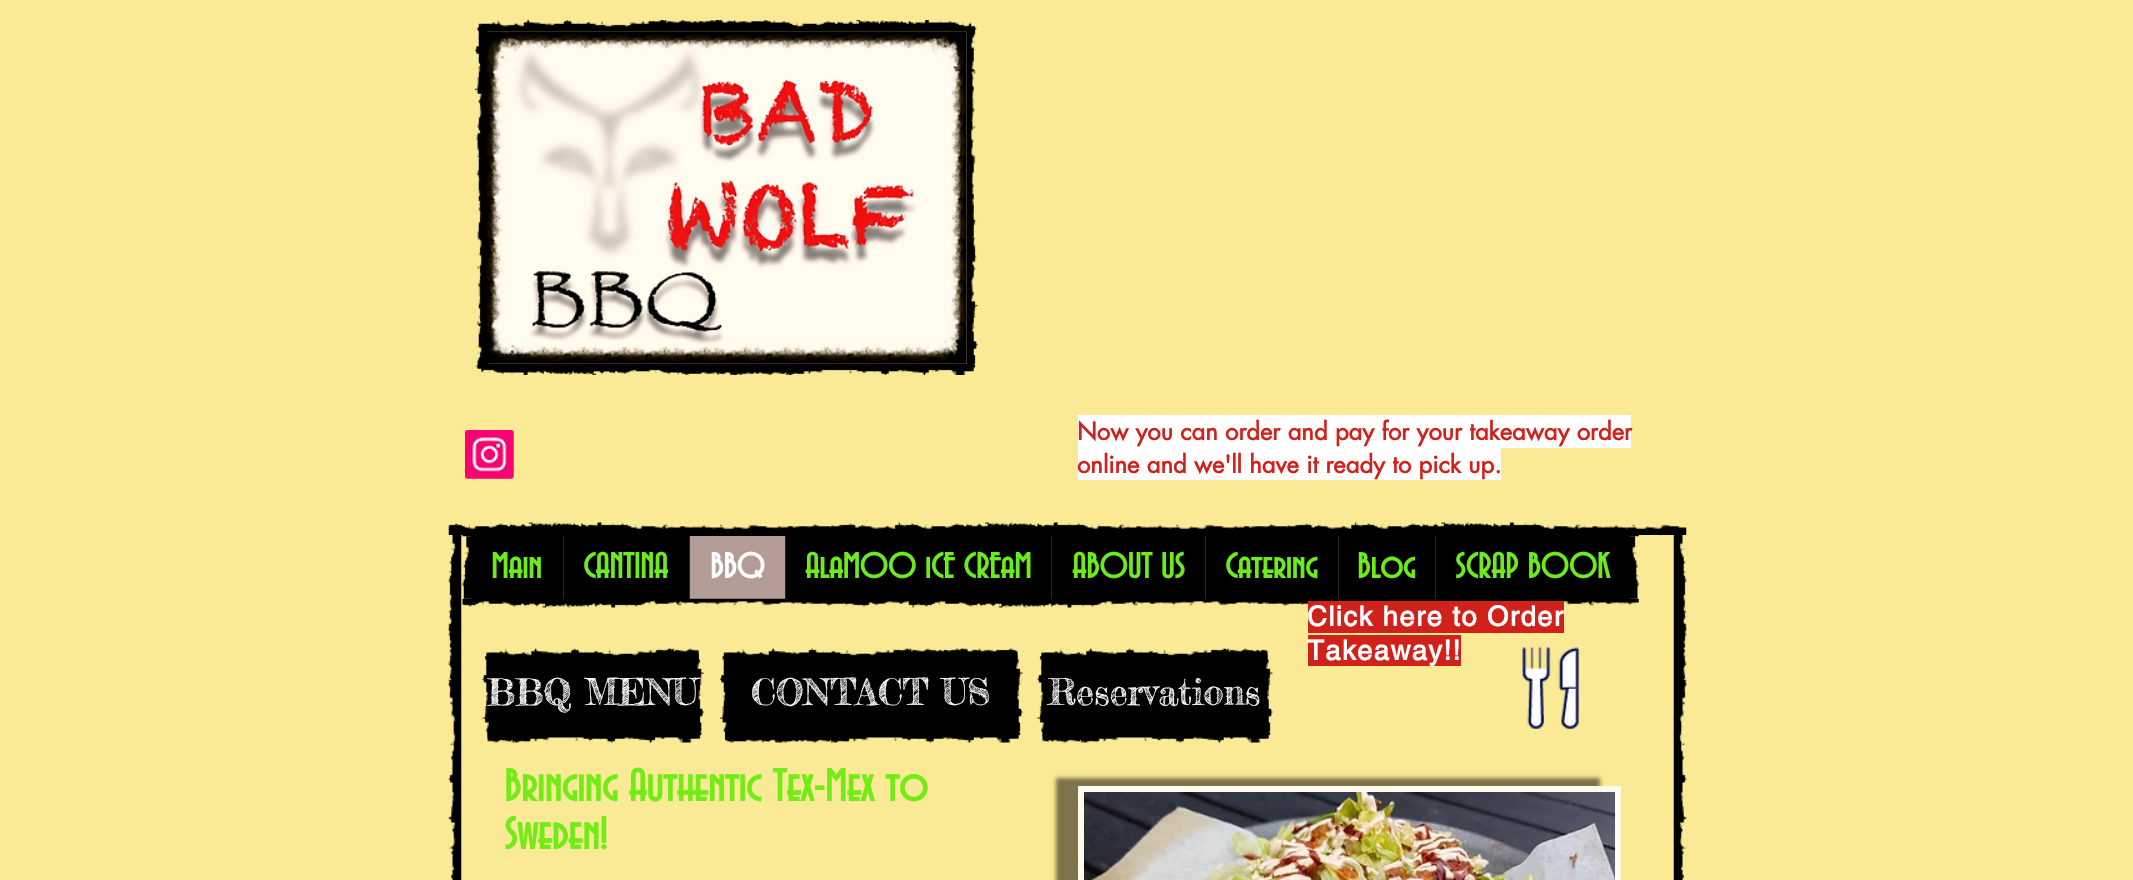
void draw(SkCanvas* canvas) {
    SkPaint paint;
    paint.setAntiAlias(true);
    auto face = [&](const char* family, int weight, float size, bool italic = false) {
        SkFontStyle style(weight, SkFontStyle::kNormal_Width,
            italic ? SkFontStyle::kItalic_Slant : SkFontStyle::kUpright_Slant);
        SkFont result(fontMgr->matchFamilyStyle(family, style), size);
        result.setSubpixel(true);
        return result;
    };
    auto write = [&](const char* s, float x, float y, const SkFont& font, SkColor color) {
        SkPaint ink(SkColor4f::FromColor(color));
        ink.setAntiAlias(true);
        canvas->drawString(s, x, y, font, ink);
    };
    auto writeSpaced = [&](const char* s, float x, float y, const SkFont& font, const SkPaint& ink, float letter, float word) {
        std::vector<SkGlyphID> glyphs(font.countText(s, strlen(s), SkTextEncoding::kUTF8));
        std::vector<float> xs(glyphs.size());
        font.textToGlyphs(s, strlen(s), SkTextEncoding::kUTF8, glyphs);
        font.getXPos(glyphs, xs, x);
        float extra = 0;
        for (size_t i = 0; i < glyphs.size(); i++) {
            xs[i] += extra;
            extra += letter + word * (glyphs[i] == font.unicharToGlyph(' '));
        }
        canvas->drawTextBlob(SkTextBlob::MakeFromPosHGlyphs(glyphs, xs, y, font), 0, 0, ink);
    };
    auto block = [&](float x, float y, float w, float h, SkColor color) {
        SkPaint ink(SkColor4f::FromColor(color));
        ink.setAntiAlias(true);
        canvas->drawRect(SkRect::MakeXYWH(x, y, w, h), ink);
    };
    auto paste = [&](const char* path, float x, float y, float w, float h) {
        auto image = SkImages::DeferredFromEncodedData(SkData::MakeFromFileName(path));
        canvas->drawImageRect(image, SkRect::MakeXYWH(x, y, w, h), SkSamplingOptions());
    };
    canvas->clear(SkColorSetRGB(250, 233, 149));
    paste("pic3.png", 481, 26, 497, 349);
    paste("pic1.png", 475, 20, 497, 349);
    paste("pic2.png", 486, 31, 481, 333);
    paste("pic4.png", 465, 430, 49, 49);
    block(1078, 415, 553, 33, SK_ColorWHITE);
    auto kFont1 = face("futura", 700, 23.75f);
    write("Now you can order and pay for your takeaway order", 1077, 440, kFont1, SkColorSetRGB(209, 33, 27));
    block(1078, 448, 423, 32, SK_ColorWHITE);
    write("online and we'll have it ready to pick up.", 1077, 473, kFont1, SkColorSetRGB(209, 33, 27));
    paste("pic17.png", 448, 522, 1239, 13);
    paste("pic5.png", 462, 528, 1177, 9);
    paste("pic6.png", 462, 536, 9, 63);
    block(471, 536, 1159, 63, SK_ColorBLACK);
    auto kFont2 = face("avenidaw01", 700, 37.5f);
    write("Main", 491, 578, kFont2, SkColorSetRGB(109, 236, 28));
    block(563, 536, 1, 63, SkColorSetRGB(46, 35, 31));
    write("CANTINA", 583, 578, kFont2, SkColorSetRGB(109, 236, 28));
    block(690, 536, 95, 63, SkColorSetRGB(178, 156, 149));
    block(689, 536, 1, 63, SkColorSetRGB(46, 35, 31));
    write("BBQ", 710, 578, kFont2, SK_ColorWHITE);
    block(785, 536, 1, 63, SkColorSetRGB(46, 35, 31));
    write("AlaMOO iCE CREaM", 805, 578, kFont2, SkColorSetRGB(109, 236, 28));
    block(1051, 536, 1, 63, SkColorSetRGB(46, 35, 31));
    write("ABOUT US", 1072, 578, kFont2, SkColorSetRGB(109, 236, 28));
    block(1205, 536, 1, 63, SkColorSetRGB(46, 35, 31));
    write("Catering", 1225, 578, kFont2, SkColorSetRGB(109, 236, 28));
    block(1338, 536, 1, 63, SkColorSetRGB(46, 35, 31));
    write("Blog", 1357, 578, kFont2, SkColorSetRGB(109, 236, 28));
    block(1435, 536, 1, 63, SkColorSetRGB(46, 35, 31));
    write("SCRAP BOOK", 1455, 578, kFont2, SkColorSetRGB(109, 236, 28));
    paste("pic7.png", 1630, 536, 9, 63);
    paste("pic8.png", 462, 598, 1177, 10);
    block(1308, 601, 256, 32, SkColorSetRGB(209, 33, 27));
    auto kFont3 = face("helvetica", 700, 27.5f);
    paint.setColor(SK_ColorWHITE);
    writeSpaced("Click here to Order", 1307, 626, kFont3, paint, 1.4f, 0);
    block(1308, 635, 153, 31, SkColorSetRGB(209, 33, 27));
    writeSpaced("Takeaway!!", 1307, 660, kFont3, paint, 1.4f, 0);
    paste("pic9.png", 1522, 647, 58, 83);
    paste("pic10.png", 482, 648, 217, 90);
    paste("pic11.png", 487, 653, 217, 90);
    block(494, 659, 199, 73, SK_ColorBLACK);
    auto kFont4 = face("Fredericka the Great", 400, 36.25f);
    write("BBQ MENU", 487, 705, kFont4, SK_ColorWHITE);
    paste("pic12.png", 720, 648, 298, 90);
    paste("pic13.png", 725, 653, 298, 90);
    block(732, 659, 280, 73, SK_ColorBLACK);
    write("CONTACT US", 751, 705, kFont4, SK_ColorWHITE);
    paste("pic14.png", 1037, 648, 231, 90);
    paste("pic15.png", 1042, 653, 231, 90);
    block(1049, 659, 213, 73, SK_ColorBLACK);
    write("Reservations", 1048, 705, kFont4, SK_ColorWHITE);
    auto kFont5 = face("avenidaw01", 700, 47.5f);
    write("Bringing Authentic Tex-Mex to", 504, 801, kFont5, SkColorSetRGB(114, 236, 22));
    write("Sweden!", 504, 849, kFont5, SkColorSetRGB(114, 236, 22));
    canvas->save();
    canvas->clipPath(SkPathBuilder(SkPathFillType::kEvenOdd).moveTo(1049, 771).lineTo(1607, 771).lineTo(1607, 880).lineTo(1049, 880).close().moveTo(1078, 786).lineTo(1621, 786).lineTo(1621, 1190).lineTo(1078, 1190).close().detach(), true);
    paint.setColor(SkColorSetARGB(128, 0, 0, 0));
    paint.setMaskFilter(SkMaskFilter::MakeBlur(kNormal_SkBlurStyle, 2));
    canvas->drawRect(SkRect::MakeXYWH(1056, 778, 544, 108), paint);
    paint.setMaskFilter(nullptr);
    canvas->restore();
    block(1078, 786, 543, 94, SkColorSetARGB(150, 255, 255, 255));
    paste("pic16.png", 1084, 792, 531, 88);
    paint.setStyle(SkPaint::kStroke_Style);
    paint.setStrokeWidth(6);
    paint.setColor(SkColorSetARGB(150, 255, 255, 255));
    canvas->drawRect(SkRect::MakeXYWH(1081, 789, 537, 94), paint);
    paste("pic18.png", 448, 535, 14, 345);
    paste("pic19.png", 1673, 535, 14, 345);
}
